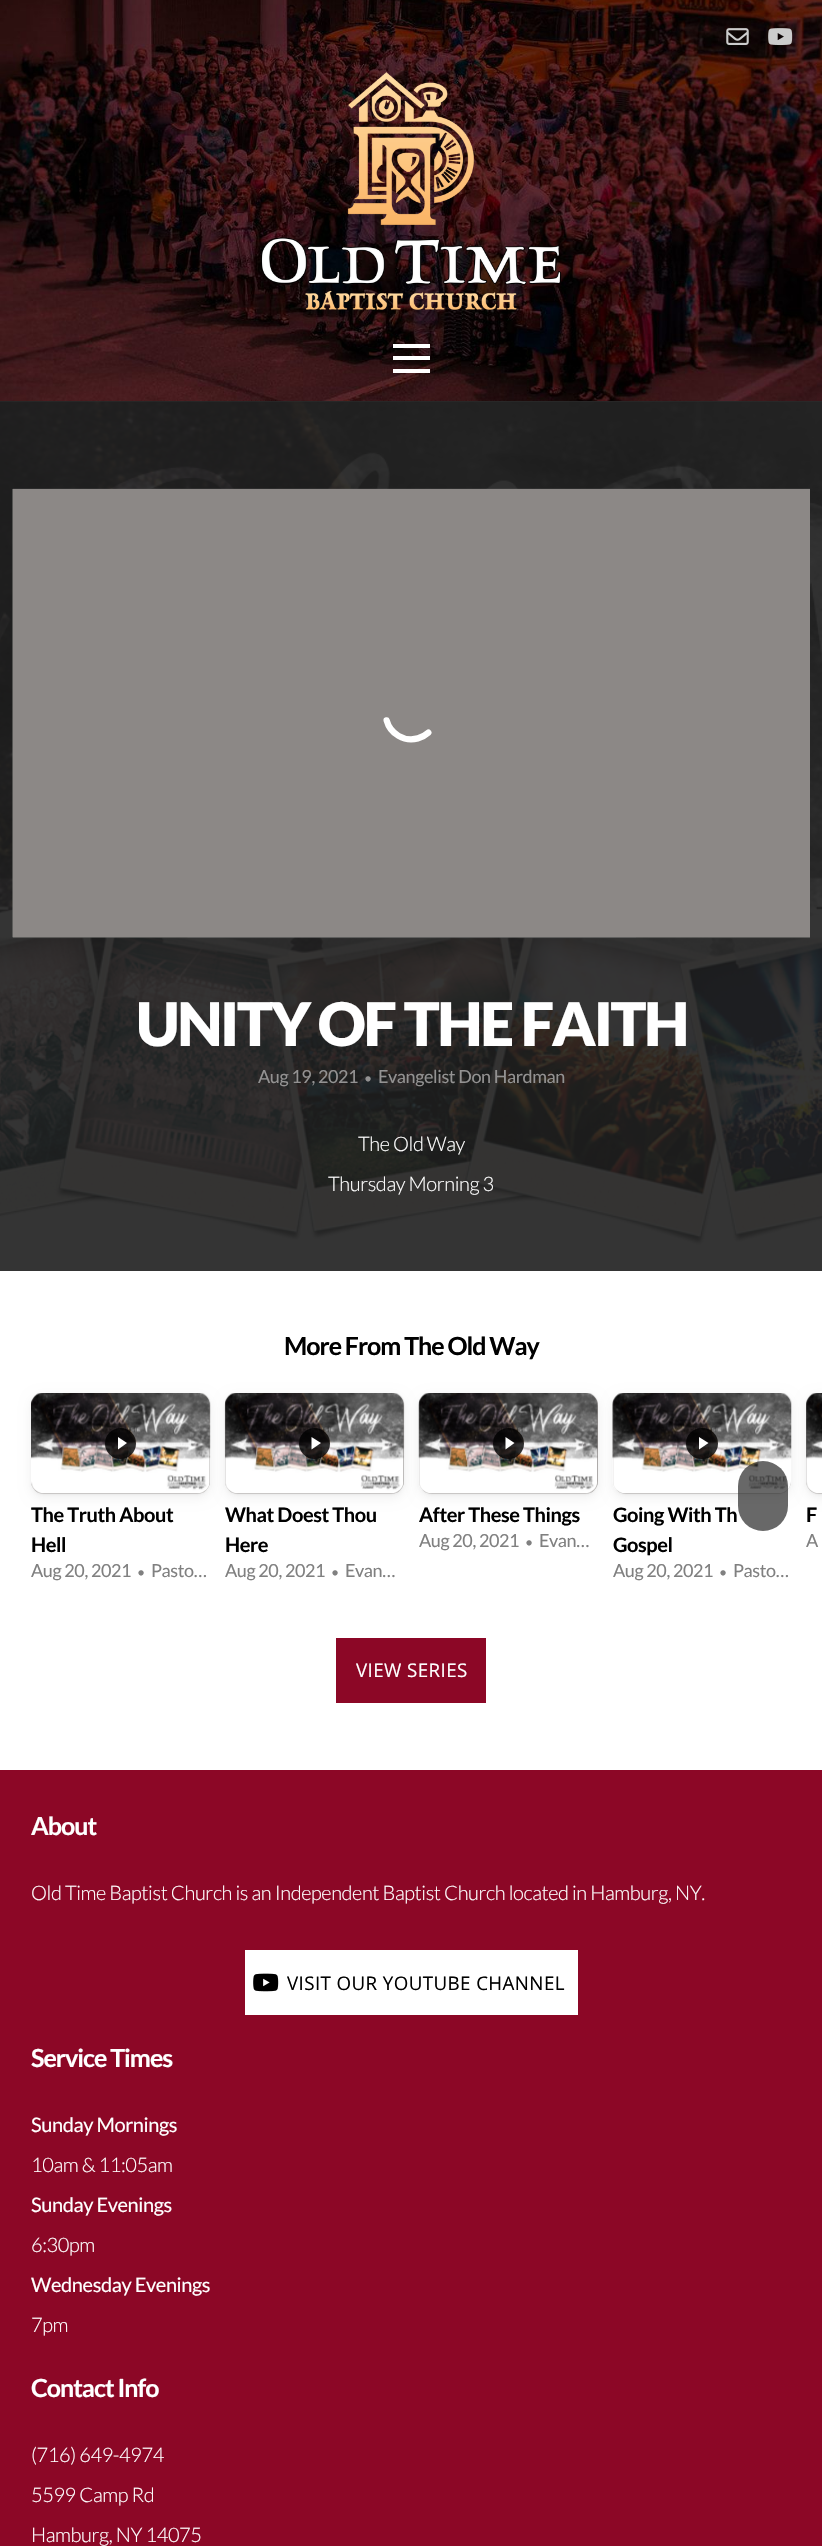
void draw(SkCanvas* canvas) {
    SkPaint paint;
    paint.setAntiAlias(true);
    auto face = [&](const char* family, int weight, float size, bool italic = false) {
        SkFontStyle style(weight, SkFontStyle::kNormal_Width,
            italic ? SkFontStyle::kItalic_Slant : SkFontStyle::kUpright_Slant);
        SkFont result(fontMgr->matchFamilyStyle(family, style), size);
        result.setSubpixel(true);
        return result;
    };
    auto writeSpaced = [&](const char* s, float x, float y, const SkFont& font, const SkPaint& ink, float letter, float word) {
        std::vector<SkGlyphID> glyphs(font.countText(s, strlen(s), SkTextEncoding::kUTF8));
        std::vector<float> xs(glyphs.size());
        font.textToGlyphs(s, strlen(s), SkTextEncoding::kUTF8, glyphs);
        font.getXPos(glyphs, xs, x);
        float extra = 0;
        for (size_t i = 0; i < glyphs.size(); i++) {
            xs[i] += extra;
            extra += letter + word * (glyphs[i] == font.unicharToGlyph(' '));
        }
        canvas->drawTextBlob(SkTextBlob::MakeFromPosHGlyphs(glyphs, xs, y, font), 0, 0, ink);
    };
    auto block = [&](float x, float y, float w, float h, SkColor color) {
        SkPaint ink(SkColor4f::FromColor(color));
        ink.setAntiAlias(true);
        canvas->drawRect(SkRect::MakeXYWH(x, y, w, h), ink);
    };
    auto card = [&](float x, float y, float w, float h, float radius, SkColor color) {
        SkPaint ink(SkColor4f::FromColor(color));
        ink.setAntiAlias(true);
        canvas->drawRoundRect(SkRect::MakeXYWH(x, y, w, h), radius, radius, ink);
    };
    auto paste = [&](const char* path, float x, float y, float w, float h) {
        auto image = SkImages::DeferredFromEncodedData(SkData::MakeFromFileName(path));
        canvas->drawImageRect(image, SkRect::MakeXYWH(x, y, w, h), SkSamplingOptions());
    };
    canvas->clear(SK_ColorWHITE);
    paste("pic1.png", 0, 0, 822, 402);
    paste("pic2.png", 726, 28, 23, 17);
    paste("pic3.png", 768, 28, 25, 17);
    paste("pic4.png", 261, 72, 301, 238);
    block(393, 344, 37, 4, SK_ColorWHITE);
    block(393, 356, 37, 4, SK_ColorWHITE);
    block(393, 369, 37, 4, SK_ColorWHITE);
    paste("pic5.png", 0, 401, 822, 845);
    block(0, 401, 822, 870, SkColorSetARGB(230, 30, 30, 30));
    paste("pic6.png", 12, 488, 798, 450);
    auto kFont1 = face("Lato", 900, 60);
    paint.setColor(SK_ColorWHITE);
    writeSpaced("UNITY OF THE FAITH", 136, 1046, kFont1, paint, -2.4f, 0);
    auto kFont2 = face("Lato", 400, 18);
    paint.setColor(SkColorSetRGB(147, 146, 146));
    writeSpaced("Aug 19, 2021", 258, 1083, kFont2, paint, -0.4f, 0);
    auto kFont3 = face("Lato", 400, 14);
    writeSpaced("•", 364, 1083, kFont3, paint, -0.4f, 0);
    writeSpaced("Evangelist Don Hardman", 378, 1083, kFont2, paint, -0.4f, 0);
    auto kFont4 = face("Lato", 300, 20);
    paint.setColor(SK_ColorWHITE);
    writeSpaced("The Old Way", 358, 1151, kFont4, paint, -0.4f, 0);
    writeSpaced("Thursday Morning 3", 328, 1191, kFont4, paint, -0.4f, 0);
    auto kFont5 = face("Lato", 700, 25);
    paint.setColor(SK_ColorBLACK);
    writeSpaced("More From The Old Way", 284, 1355, kFont5, paint, -1, 0);
    paint.setColor(SkColorSetARGB(10, 0, 0, 0));
    paint.setMaskFilter(SkMaskFilter::MakeBlur(kNormal_SkBlurStyle, 1));
    canvas->drawRoundRect(SkRect::MakeXYWH(613, 1394, 178, 101), 13, 13, paint);
    paint.setMaskFilter(nullptr);
    paint.setMaskFilter(SkMaskFilter::MakeBlur(kNormal_SkBlurStyle, 1));
    canvas->drawRoundRect(SkRect::MakeXYWH(31, 1394, 179, 101), 13, 13, paint);
    paint.setMaskFilter(nullptr);
    paint.setColor(SkColorSetARGB(15, 0, 0, 0));
    paint.setMaskFilter(SkMaskFilter::MakeBlur(kNormal_SkBlurStyle, 6));
    canvas->drawRoundRect(SkRect::MakeXYWH(31, 1396, 179, 102), 13, 13, paint);
    paint.setMaskFilter(nullptr);
    card(31, 1393, 179, 101, 13, SkColorSetRGB(140, 136, 134));
    paste("pic7.png", 31, 1393, 180, 101);
    paint.setMaskFilter(SkMaskFilter::MakeBlur(kNormal_SkBlurStyle, 6));
    canvas->drawRoundRect(SkRect::MakeXYWH(225, 1396, 179, 102), 13, 13, paint);
    paint.setMaskFilter(nullptr);
    paint.setColor(SkColorSetARGB(10, 0, 0, 0));
    paint.setMaskFilter(SkMaskFilter::MakeBlur(kNormal_SkBlurStyle, 1));
    canvas->drawRoundRect(SkRect::MakeXYWH(419, 1394, 179, 101), 13, 13, paint);
    paint.setMaskFilter(nullptr);
    paint.setMaskFilter(SkMaskFilter::MakeBlur(kNormal_SkBlurStyle, 1));
    canvas->drawRoundRect(SkRect::MakeXYWH(225, 1394, 179, 101), 13, 13, paint);
    paint.setMaskFilter(nullptr);
    card(225, 1393, 179, 101, 13, SkColorSetRGB(140, 136, 134));
    paste("pic8.png", 224, 1393, 181, 101);
    paint.setColor(SkColorSetARGB(15, 0, 0, 0));
    paint.setMaskFilter(SkMaskFilter::MakeBlur(kNormal_SkBlurStyle, 6));
    canvas->drawRoundRect(SkRect::MakeXYWH(419, 1396, 179, 102), 13, 13, paint);
    paint.setMaskFilter(nullptr);
    card(419, 1393, 179, 101, 13, SkColorSetRGB(140, 136, 134));
    paste("pic9.png", 418, 1393, 180, 101);
    paint.setMaskFilter(SkMaskFilter::MakeBlur(kNormal_SkBlurStyle, 6));
    canvas->drawRoundRect(SkRect::MakeXYWH(613, 1396, 178, 102), 13, 13, paint);
    paint.setMaskFilter(nullptr);
    card(613, 1393, 178, 101, 13, SkColorSetRGB(140, 136, 134));
    paste("pic10.png", 612, 1393, 180, 101);
    paint.setMaskFilter(SkMaskFilter::MakeBlur(kNormal_SkBlurStyle, 6));
    canvas->drawRoundRect(SkRect::MakeXYWH(806, 1396, 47, 102), 13, 13, paint);
    paint.setMaskFilter(nullptr);
    card(738, 1461, 50, 70, 25, SkColorSetARGB(179, 40, 40, 40));
    paint.setColor(SkColorSetARGB(204, 0, 0, 0));
    canvas->drawCircle(120.5f, 1443.5f, 15.5f, paint);
    paint.setColor(SK_ColorWHITE);
    canvas->drawPath(SkPathBuilder().moveTo(118, 1449.5f).lineTo(118, 1437).lineTo(127, 1443).close().detach(), paint);
    auto kFont6 = face("Lato", 700, 20);
    paint.setColor(SK_ColorBLACK);
    writeSpaced("The Truth About", 31, 1522, kFont6, paint, -0.4f, 0);
    writeSpaced("Hell", 31, 1552, kFont6, paint, -0.4f, 0);
    paint.setColor(SkColorSetRGB(128, 128, 128));
    writeSpaced("Aug 20, 2021", 31, 1577, kFont2, paint, -0.4f, 0);
    writeSpaced("•", 137, 1577, kFont3, paint, -0.4f, 0);
    writeSpaced("Pasto…", 151, 1577, kFont2, paint, -0.4f, 0);
    paint.setColor(SkColorSetARGB(204, 0, 0, 0));
    canvas->drawCircle(314.5f, 1443.5f, 15.5f, paint);
    paint.setColor(SK_ColorWHITE);
    canvas->drawPath(SkPathBuilder().moveTo(311.5f, 1449.5f).lineTo(311.5f, 1437).lineTo(321, 1443).close().detach(), paint);
    paint.setColor(SK_ColorBLACK);
    writeSpaced("What Doest Thou", 225, 1522, kFont6, paint, -0.4f, 0);
    writeSpaced("Here", 225, 1552, kFont6, paint, -0.4f, 0);
    paint.setColor(SkColorSetRGB(128, 128, 128));
    writeSpaced("Aug 20, 2021", 225, 1577, kFont2, paint, -0.4f, 0);
    writeSpaced("•", 331, 1577, kFont3, paint, -0.4f, 0);
    writeSpaced("Evan…", 345, 1577, kFont2, paint, -0.4f, 0);
    paint.setColor(SkColorSetARGB(204, 0, 0, 0));
    canvas->drawCircle(508.5f, 1443.5f, 15.5f, paint);
    paint.setColor(SK_ColorWHITE);
    canvas->drawPath(SkPathBuilder().moveTo(505.5f, 1449.5f).lineTo(505.5f, 1437).lineTo(514.5f, 1443).close().detach(), paint);
    paint.setColor(SK_ColorBLACK);
    writeSpaced("After These Things", 419, 1522, kFont6, paint, -0.4f, 0);
    paint.setColor(SkColorSetRGB(128, 128, 128));
    writeSpaced("Aug 20, 2021", 419, 1547, kFont2, paint, -0.4f, 0);
    writeSpaced("•", 525, 1547, kFont3, paint, -0.4f, 0);
    writeSpaced("Evan…", 539, 1547, kFont2, paint, -0.4f, 0);
    card(686, 1428, 32, 31, 15.5f, SkColorSetARGB(204, 0, 0, 0));
    paint.setColor(SK_ColorWHITE);
    canvas->drawPath(SkPathBuilder().moveTo(699, 1449.5f).lineTo(699, 1437).lineTo(708.5f, 1443).close().detach(), paint);
    paint.setColor(SK_ColorBLACK);
    writeSpaced("Going With Th", 613, 1522, kFont6, paint, -0.4f, 0);
    writeSpaced("Gospel", 613, 1552, kFont6, paint, -0.4f, 0);
    paint.setColor(SkColorSetRGB(128, 128, 128));
    writeSpaced("Aug 20, 2021", 613, 1577, kFont2, paint, -0.4f, 0);
    writeSpaced("•", 719, 1577, kFont3, paint, -0.4f, 0);
    writeSpaced("Pasto…", 733, 1577, kFont2, paint, -0.4f, 0);
    paint.setColor(SkColorSetARGB(10, 0, 0, 0));
    paint.setMaskFilter(SkMaskFilter::MakeBlur(kNormal_SkBlurStyle, 1));
    canvas->drawRoundRect(SkRect::MakeXYWH(806, 1394, 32, 101), 13, 13, paint);
    paint.setMaskFilter(nullptr);
    paint.setColor(SkColorSetRGB(140, 136, 134));
    canvas->drawPath(SkPathBuilder().moveTo(819, 1393).lineTo(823, 1393).lineTo(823, 1494).lineTo(819, 1494).cubicTo(812, 1494, 806, 1488, 806, 1481).lineTo(806, 1406).cubicTo(806, 1399, 812, 1393, 819, 1393).close().detach(), paint);
    paste("pic11.png", 806, 1393, 16, 101);
    paint.setColor(SK_ColorBLACK);
    writeSpaced("F", 806, 1522, kFont6, paint, -0.4f, 0);
    paint.setColor(SkColorSetRGB(128, 128, 128));
    writeSpaced("A", 806, 1547, kFont2, paint, -0.4f, 0);
    block(336, 1638, 150, 65, SkColorSetRGB(140, 7, 38));
    auto kFont7 = face("Open Sans", 400, 18.75f);
    paint.setColor(SK_ColorWHITE);
    writeSpaced("VIEW SERIES", 356, 1677, kFont7, paint, 0.4f, 0);
    block(0, 1770, 822, 776, SkColorSetRGB(140, 7, 38));
    writeSpaced("About", 31, 1835, kFont5, paint, -1, 0);
    writeSpaced("Old Time Baptist Church is an Independent Baptist Church located in Hamburg, NY.", 31, 1900, kFont4, paint, -0.4f, 0);
    block(245, 1950, 333, 65, SK_ColorWHITE);
    paste("pic12.png", 253, 1973, 26, 19);
    paint.setColor(SK_ColorBLACK);
    writeSpaced("VISIT OUR YOUTUBE CHANNEL", 287, 1990, kFont7, paint, 0.4f, 0);
    paint.setColor(SK_ColorWHITE);
    writeSpaced("Service Times", 31, 2067, kFont5, paint, -1, 0);
    auto kFont8 = face("Lato", 400, 20);
    writeSpaced("Sunday Mornings", 31, 2132, kFont8, paint, -0.4f, 0);
    writeSpaced("10am & 11:05am", 31, 2172, kFont4, paint, -0.4f, 0);
    writeSpaced("Sunday Evenings", 31, 2212, kFont8, paint, -0.4f, 0);
    writeSpaced("6:30pm", 31, 2252, kFont4, paint, -0.4f, 0);
    writeSpaced("Wednesday Evenings", 31, 2292, kFont8, paint, -0.4f, 0);
    writeSpaced("7pm", 31, 2332, kFont4, paint, -0.4f, 0);
    writeSpaced("Contact Info", 31, 2397, kFont5, paint, -1, 0);
    writeSpaced("(716) 649-4974", 31, 2462, kFont4, paint, -0.4f, 0);
    writeSpaced("5599 Camp Rd", 31, 2502, kFont4, paint, -0.4f, 0);
    writeSpaced("Hamburg, NY 14075", 31, 2542, kFont4, paint, -0.4f, 0);
}
